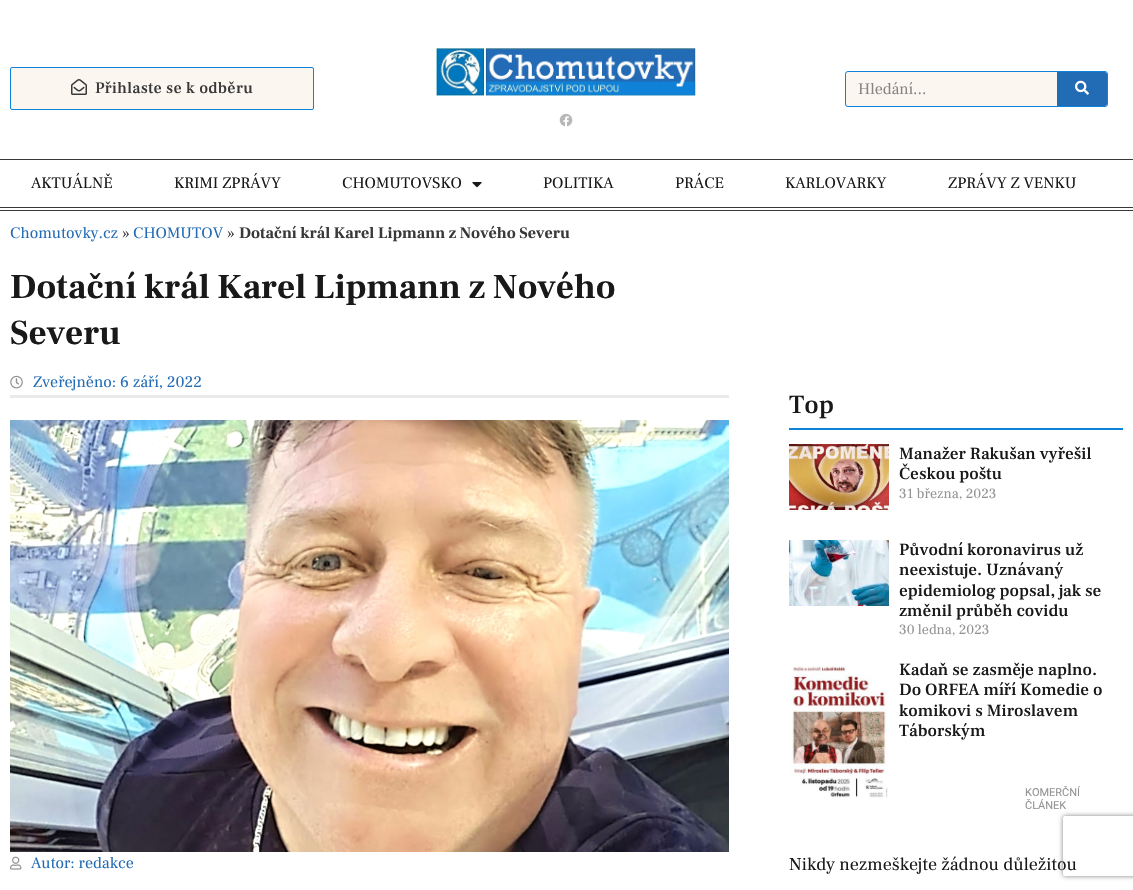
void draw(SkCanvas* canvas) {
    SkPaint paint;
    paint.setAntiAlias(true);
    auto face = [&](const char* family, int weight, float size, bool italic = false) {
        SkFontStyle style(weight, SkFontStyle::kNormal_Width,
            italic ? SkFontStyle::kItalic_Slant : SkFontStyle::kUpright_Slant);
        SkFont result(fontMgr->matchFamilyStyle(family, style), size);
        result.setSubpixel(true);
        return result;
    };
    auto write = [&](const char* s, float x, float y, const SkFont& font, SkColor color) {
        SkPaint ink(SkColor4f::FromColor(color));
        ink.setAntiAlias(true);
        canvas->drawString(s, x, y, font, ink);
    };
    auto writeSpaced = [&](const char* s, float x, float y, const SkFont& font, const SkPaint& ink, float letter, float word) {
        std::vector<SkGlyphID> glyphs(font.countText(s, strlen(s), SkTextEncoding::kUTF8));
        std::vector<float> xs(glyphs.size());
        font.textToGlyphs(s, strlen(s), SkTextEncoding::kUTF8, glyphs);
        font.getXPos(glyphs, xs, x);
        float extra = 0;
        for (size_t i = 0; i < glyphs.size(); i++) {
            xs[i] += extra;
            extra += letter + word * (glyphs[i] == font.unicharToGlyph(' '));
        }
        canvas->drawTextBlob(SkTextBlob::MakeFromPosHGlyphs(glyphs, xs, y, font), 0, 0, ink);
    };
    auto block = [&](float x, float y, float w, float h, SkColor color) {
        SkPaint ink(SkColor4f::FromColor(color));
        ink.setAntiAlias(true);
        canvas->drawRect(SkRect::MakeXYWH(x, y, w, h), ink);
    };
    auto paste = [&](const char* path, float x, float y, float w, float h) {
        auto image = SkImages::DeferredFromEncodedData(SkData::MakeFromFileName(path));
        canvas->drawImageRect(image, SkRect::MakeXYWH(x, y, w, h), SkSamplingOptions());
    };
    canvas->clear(SK_ColorWHITE);
    paint.setColor(SkColorSetRGB(251, 246, 239));
    canvas->drawRoundRect(SkRect::MakeXYWH(10.5f, 67.5f, 303, 42), 1.5f, 1.5f, paint);
    paint.setStyle(SkPaint::kStroke_Style);
    paint.setStrokeWidth(1);
    paint.setColor(SkColorSetRGB(14, 130, 217));
    canvas->drawRoundRect(SkRect::MakeXYWH(10.5f, 67.5f, 303, 42), 1.5f, 1.5f, paint);
    paste("pic1.png", 71, 79, 16, 16);
    auto kFont1 = face("Frank Ruhl Libre", 500, 16);
    paint.setStyle(SkPaint::kFill_Style);
    paint.setColor(SkColorSetRGB(57, 57, 57));
    writeSpaced("Přihlaste se k odběru", 95, 93, kFont1, paint, 0.3f, 0);
    paste("pic2.png", 436, 48, 260, 48);
    paste("pic3.png", 559, 113, 14, 14);
    paint.setColor(SkColorSetRGB(251, 246, 239));
    canvas->drawRoundRect(SkRect::MakeXYWH(845.5f, 71.5f, 262, 35), 2.5f, 2.5f, paint);
    paint.setStyle(SkPaint::kStroke_Style);
    paint.setColor(SkColorSetRGB(14, 130, 217));
    canvas->drawRoundRect(SkRect::MakeXYWH(845.5f, 71.5f, 262, 35), 2.5f, 2.5f, paint);
    auto kFont2 = face("Frank Ruhl Libre", 400, 16);
    write("Hledání...", 858, 94, kFont2, SkColorSetRGB(135, 133, 130));
    paint.setStyle(SkPaint::kFill_Style);
    paint.setColor(SkColorSetRGB(34, 108, 181));
    canvas->drawPath(SkPathBuilder().moveTo(1057, 72).lineTo(1105, 72).cubicTo(1106, 72, 1107, 73, 1107, 74).lineTo(1107, 104).cubicTo(1107, 105, 1106, 106, 1105, 106).lineTo(1057, 106).close().detach(), paint);
    paste("pic4.png", 1075, 80, 14, 15);
    block(0, 159, 1133, 1, SkColorSetRGB(57, 57, 57));
    block(0, 207, 1133, 1, SkColorSetRGB(57, 57, 57));
    block(0, 210, 1133, 1, SkColorSetRGB(57, 57, 57));
    write("AKTUÁLNĚ", 31, 188, kFont2, SkColorSetRGB(25, 25, 25));
    write("KRIMI ZPRÁVY", 174, 188, kFont2, SkColorSetRGB(25, 25, 25));
    write("CHOMUTOVSKO", 342, 188, kFont2, SkColorSetRGB(25, 25, 25));
    paste("pic5.png", 472, 182, 10, 6);
    write("POLITIKA", 543, 188, kFont2, SkColorSetRGB(25, 25, 25));
    write("PRÁCE", 675, 188, kFont2, SkColorSetRGB(25, 25, 25));
    write("KARLOVARKY", 785, 188, kFont2, SkColorSetRGB(25, 25, 25));
    write("ZPRÁVY Z VENKU", 948, 188, kFont2, SkColorSetRGB(25, 25, 25));
    write("Chomutovky.cz", 10, 238, kFont2, SkColorSetRGB(34, 108, 181));
    write("»", 122, 238, kFont2, SkColorSetRGB(57, 57, 57));
    write("CHOMUTOV", 133, 238, kFont2, SkColorSetRGB(34, 108, 181));
    write("»", 227, 238, kFont2, SkColorSetRGB(57, 57, 57));
    auto kFont3 = face("Frank Ruhl Libre", 700, 16);
    write("Dotační král Karel Lipmann z Nového Severu", 239, 238, kFont3, SkColorSetRGB(57, 57, 57));
    auto kFont4 = face("Frank Ruhl Libre", 700, 35);
    write("Dotační král Karel Lipmann z Nového", 10, 298, kFont4, SkColorSetRGB(25, 25, 25));
    write("Severu", 10, 344, kFont4, SkColorSetRGB(25, 25, 25));
    paste("pic6.png", 10, 375, 13, 14);
    write("Zveřejněno: 6 září, 2022", 33, 387, kFont2, SkColorSetRGB(34, 108, 181));
    block(10, 395, 719, 3, SkColorSetRGB(234, 234, 234));
    paste("pic7.png", 10, 420, 719, 432);
    paste("pic8.png", 10, 856, 12, 14);
    write("Autor: redakce", 31, 868, kFont2, SkColorSetRGB(34, 108, 181));
    auto kFont5 = face("Frank Ruhl Libre", 500, 26);
    write("Top", 789, 413, kFont5, SkColorSetRGB(25, 25, 25));
    block(789, 428, 334, 2, SkColorSetRGB(14, 130, 217));
    paste("pic9.png", 789, 444, 100, 66);
    auto kFont6 = face("Frank Ruhl Libre", 500, 17);
    write("Manažer Rakušan vyřešil", 899, 459, kFont6, SkColorSetRGB(25, 25, 25));
    write("Českou poštu", 899, 479, kFont6, SkColorSetRGB(25, 25, 25));
    auto kFont7 = face("Frank Ruhl Libre", 400, 14);
    write("31 března, 2023", 899, 498, kFont7, SkColorSetRGB(147, 147, 147));
    paste("pic10.png", 789, 540, 100, 66);
    write("Původní koronavirus už", 899, 555, kFont6, SkColorSetRGB(25, 25, 25));
    write("neexistuje. Uznávaný", 899, 575, kFont6, SkColorSetRGB(25, 25, 25));
    write("epidemiolog popsal, jak se", 899, 596, kFont6, SkColorSetRGB(25, 25, 25));
    write("změnil průběh covidu", 899, 616, kFont6, SkColorSetRGB(25, 25, 25));
    write("30 ledna, 2023", 899, 634, kFont7, SkColorSetRGB(147, 147, 147));
    paste("pic11.png", 789, 666, 99, 132);
    write("Kadaň se zasměje naplno.", 899, 675, kFont6, SkColorSetRGB(25, 25, 25));
    write("Do ORFEA míří Komedie o", 899, 695, kFont6, SkColorSetRGB(25, 25, 25));
    write("komikovi s Miroslavem", 899, 716, kFont6, SkColorSetRGB(25, 25, 25));
    write("Táborským", 899, 736, kFont6, SkColorSetRGB(25, 25, 25));
    auto kFont8 = face("Roboto", 400, 11);
    write("KOMERČNÍ", 1025, 796, kFont8, SkColorSetRGB(147, 147, 147));
    write("ČLÁNEK", 1025, 809, kFont8, SkColorSetRGB(147, 147, 147));
    auto kFont9 = face("Frank Ruhl Libre", 400, 18);
    write("Nikdy nezmeškejte žádnou důležitou", 789, 870, kFont9, SkColorSetRGB(25, 25, 25));
    canvas->save();
    canvas->clipPath(SkPathBuilder(SkPathFillType::kEvenOdd).moveTo(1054, 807).lineTo(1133, 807).lineTo(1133, 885).lineTo(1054, 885).close().moveTo(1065, 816).lineTo(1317, 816).cubicTo(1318, 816, 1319, 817, 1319, 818).lineTo(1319, 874).cubicTo(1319, 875, 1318, 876, 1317, 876).lineTo(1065, 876).cubicTo(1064, 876, 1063, 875, 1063, 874).lineTo(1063, 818).cubicTo(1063, 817, 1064, 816, 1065, 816).close().detach(), true);
    paint.setColor(SkColorSetRGB(128, 128, 128));
    paint.setMaskFilter(SkMaskFilter::MakeBlur(kNormal_SkBlurStyle, 2.5f));
    canvas->drawRoundRect(SkRect::MakeXYWH(1063, 816, 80, 60), 2, 2, paint);
    paint.setMaskFilter(nullptr);
    canvas->restore();
}
